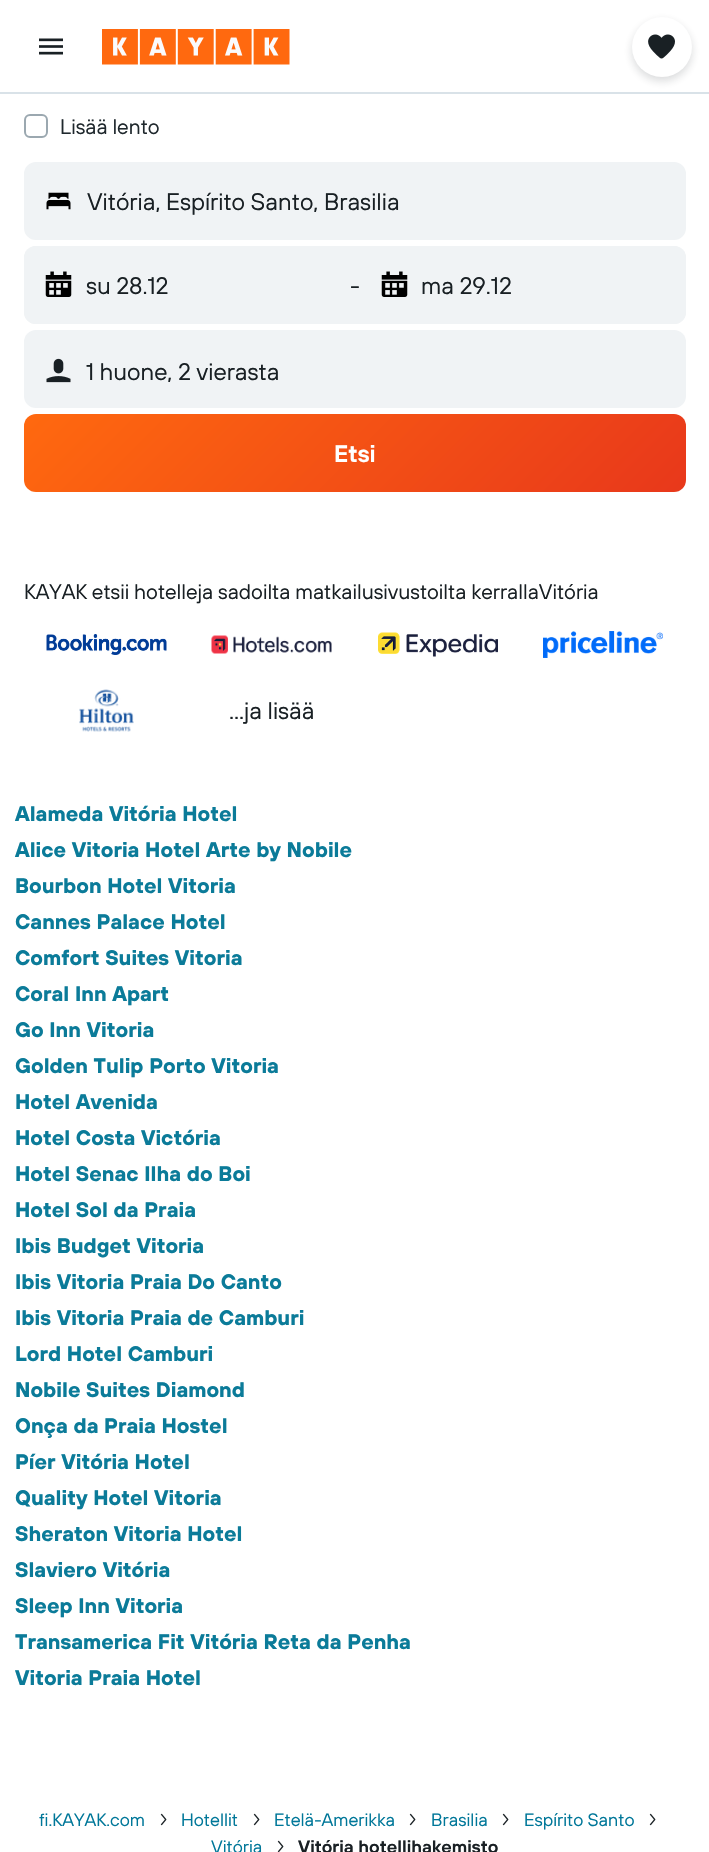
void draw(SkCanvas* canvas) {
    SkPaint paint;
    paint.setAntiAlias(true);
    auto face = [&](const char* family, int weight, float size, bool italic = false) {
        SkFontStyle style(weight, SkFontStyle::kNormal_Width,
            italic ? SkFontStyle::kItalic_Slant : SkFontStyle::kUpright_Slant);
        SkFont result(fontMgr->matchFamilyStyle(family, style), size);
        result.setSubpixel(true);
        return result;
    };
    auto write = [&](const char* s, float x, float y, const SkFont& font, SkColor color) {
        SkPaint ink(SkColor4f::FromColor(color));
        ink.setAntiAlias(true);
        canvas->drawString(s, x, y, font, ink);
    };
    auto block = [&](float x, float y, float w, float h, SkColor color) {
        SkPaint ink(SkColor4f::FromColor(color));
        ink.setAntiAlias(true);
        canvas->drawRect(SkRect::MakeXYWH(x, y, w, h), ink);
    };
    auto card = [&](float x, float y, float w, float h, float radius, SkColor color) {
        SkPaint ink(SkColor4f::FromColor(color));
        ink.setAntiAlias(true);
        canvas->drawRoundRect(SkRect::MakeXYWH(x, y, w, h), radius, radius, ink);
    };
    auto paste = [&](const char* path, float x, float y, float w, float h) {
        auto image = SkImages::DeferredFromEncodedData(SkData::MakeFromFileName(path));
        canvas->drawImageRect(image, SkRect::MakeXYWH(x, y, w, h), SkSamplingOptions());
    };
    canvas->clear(SK_ColorWHITE);
    block(0, 92, 709, 2, SkColorSetRGB(217, 226, 232));
    paste("pic1.png", 39, 38, 24, 17);
    paste("pic2.png", 102, 29, 188, 36);
    paint.setColor(SkColorSetARGB(41, 25, 32, 36));
    paint.setMaskFilter(SkMaskFilter::MakeBlur(kNormal_SkBlurStyle, 4.5f));
    canvas->drawRoundRect(SkRect::MakeXYWH(632, 21, 60, 60), 30, 30, paint);
    paint.setMaskFilter(nullptr);
    paint.setColor(SK_ColorWHITE);
    canvas->drawCircle(662, 47, 30, paint);
    paste("pic3.png", 648, 34, 27, 25);
    paint.setStyle(SkPaint::kStroke_Style);
    paint.setStrokeWidth(2);
    paint.setColor(SkColorSetRGB(155, 168, 176));
    canvas->drawRoundRect(SkRect::MakeXYWH(25, 115, 22, 22), 5, 5, paint);
    auto kFont1 = face("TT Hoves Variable", 400, 21);
    write("Lisää lento", 60, 134, kFont1, SkColorSetRGB(31, 40, 45));
    paint.setStyle(SkPaint::kFill_Style);
    paint.setColor(SkColorSetRGB(240, 243, 245));
    canvas->drawRoundRect(SkRect::MakeXYWH(25, 163, 660, 76), 11, 11, paint);
    paint.setStyle(SkPaint::kStroke_Style);
    canvas->drawRoundRect(SkRect::MakeXYWH(25, 163, 660, 76), 11, 11, paint);
    paste("pic4.png", 46, 192, 25, 18);
    auto kFont2 = face("TT Hoves Variable", 400, 24);
    write("Vitória, Espírito Santo, Brasilia", 87, 210, kFont2, SkColorSetRGB(25, 32, 36));
    card(24, 246, 662, 78, 12, SkColorSetRGB(240, 243, 245));
    card(24, 246, 326, 78, 12, SkColorSetRGB(240, 243, 245));
    paste("pic5.png", 45, 271, 27, 26);
    write("su 28.12", 86, 294, kFont2, SkColorSetRGB(25, 32, 36));
    write("-", 350, 294, kFont2, SkColorSetRGB(25, 32, 36));
    card(360, 246, 326, 78, 12, SkColorSetRGB(240, 243, 245));
    paste("pic5.png", 381, 271, 27, 26);
    write("ma 29.12", 421, 294, kFont2, SkColorSetRGB(25, 32, 36));
    card(24, 330, 662, 78, 12, SkColorSetRGB(240, 243, 245));
    paste("pic6.png", 46, 358, 25, 25);
    write("1 huone, 2 vierasta", 86, 380, kFont2, SkColorSetRGB(25, 32, 36));
    paint.setStyle(SkPaint::kFill_Style);
    {
        const SkColor colors[] = {SkColorSetRGB(255, 105, 15), SkColorSetRGB(232, 56, 27)};
        const float stops[] = {0, 1};
        const SkPoint ends[] = {{170, 268}, {540, 638}};
        paint.setShader(SkGradientShader::MakeLinear(ends, colors, stops, 2, SkTileMode::kClamp));
        paint.setAlpha(255);
    }
    canvas->drawRoundRect(SkRect::MakeXYWH(24, 414, 662, 78), 12, 12, paint);
    auto kFont3 = face("TT Hoves Variable", 600, 24);
    write("Etsi", 334, 462, kFont3, SK_ColorWHITE);
    write("KAYAK etsii hotelleja sadoilta matkailusivustoilta kerrallaVitória", 24, 599, kFont1, SkColorSetRGB(25, 32, 36));
    paste("pic7.png", 46, 634, 121, 21);
    paste("pic8.png", 211, 635, 121, 19);
    paste("pic9.png", 378, 632, 120, 25);
    paste("pic10.png", 543, 631, 120, 27);
    paste("pic11.png", 79, 689, 55, 43);
    write("...ja lisää", 229, 719, kFont2, SkColorSetRGB(25, 32, 36));
    auto kFont4 = face("TT Hoves Variable", 700, 21);
    write("Alameda Vitória Hotel", 15, 821, kFont4, SkColorSetRGB(11, 123, 153));
    write("Alice Vitoria Hotel Arte by Nobile", 15, 857, kFont4, SkColorSetRGB(11, 123, 153));
    write("Bourbon Hotel Vitoria", 15, 893, kFont4, SkColorSetRGB(11, 123, 153));
    write("Cannes Palace Hotel", 15, 929, kFont4, SkColorSetRGB(11, 123, 153));
    write("Comfort Suites Vitoria", 15, 965, kFont4, SkColorSetRGB(11, 123, 153));
    write("Coral Inn Apart", 15, 1001, kFont4, SkColorSetRGB(11, 123, 153));
    write("Go Inn Vitoria", 15, 1037, kFont4, SkColorSetRGB(11, 123, 153));
    write("Golden Tulip Porto Vitoria", 15, 1073, kFont4, SkColorSetRGB(11, 123, 153));
    write("Hotel Avenida", 15, 1109, kFont4, SkColorSetRGB(11, 123, 153));
    write("Hotel Costa Victória", 15, 1145, kFont4, SkColorSetRGB(11, 123, 153));
    write("Hotel Senac Ilha do Boi", 15, 1181, kFont4, SkColorSetRGB(11, 123, 153));
    write("Hotel Sol da Praia", 15, 1217, kFont4, SkColorSetRGB(11, 123, 153));
    write("Ibis Budget Vitoria", 15, 1253, kFont4, SkColorSetRGB(11, 123, 153));
    write("Ibis Vitoria Praia Do Canto", 15, 1289, kFont4, SkColorSetRGB(11, 123, 153));
    write("Ibis Vitoria Praia de Camburi", 15, 1325, kFont4, SkColorSetRGB(11, 123, 153));
    write("Lord Hotel Camburi", 15, 1361, kFont4, SkColorSetRGB(11, 123, 153));
    write("Nobile Suites Diamond", 15, 1397, kFont4, SkColorSetRGB(11, 123, 153));
    write("Onça da Praia Hostel", 15, 1433, kFont4, SkColorSetRGB(11, 123, 153));
    write("Píer Vitória Hotel", 15, 1469, kFont4, SkColorSetRGB(11, 123, 153));
    write("Quality Hotel Vitoria", 15, 1505, kFont4, SkColorSetRGB(11, 123, 153));
    write("Sheraton Vitoria Hotel", 15, 1541, kFont4, SkColorSetRGB(11, 123, 153));
    write("Slaviero Vitória", 15, 1577, kFont4, SkColorSetRGB(11, 123, 153));
    write("Sleep Inn Vitoria", 15, 1613, kFont4, SkColorSetRGB(11, 123, 153));
    write("Transamerica Fit Vitória Reta da Penha", 15, 1649, kFont4, SkColorSetRGB(11, 123, 153));
    write("Vitoria Praia Hotel", 15, 1685, kFont4, SkColorSetRGB(11, 123, 153));
    auto kFont5 = face("TT Hoves Variable", 400, 18);
    write("fi.KAYAK.com", 39, 1826, kFont5, SkColorSetRGB(0, 119, 153));
    paste("pic12.png", 160, 1813, 7, 13);
    write("Hotellit", 181, 1826, kFont5, SkColorSetRGB(0, 119, 153));
    paste("pic12.png", 253, 1813, 7, 13);
    write("Etelä-Amerikka", 274, 1826, kFont5, SkColorSetRGB(0, 119, 153));
    paste("pic12.png", 409, 1813, 7, 13);
    write("Brasilia", 431, 1826, kFont5, SkColorSetRGB(0, 119, 153));
    paste("pic12.png", 502, 1813, 7, 13);
    write("Espírito Santo", 524, 1826, kFont5, SkColorSetRGB(0, 119, 153));
    paste("pic12.png", 649, 1813, 7, 13);
    write("Vitória", 211, 1853, kFont5, SkColorSetRGB(0, 119, 153));
    paste("pic13.png", 277, 1840, 7, 12);
    auto kFont6 = face("TT Hoves Variable", 600, 18);
    write("Vitória hotellihakemisto", 298, 1853, kFont6, SkColorSetRGB(25, 32, 36));
}
